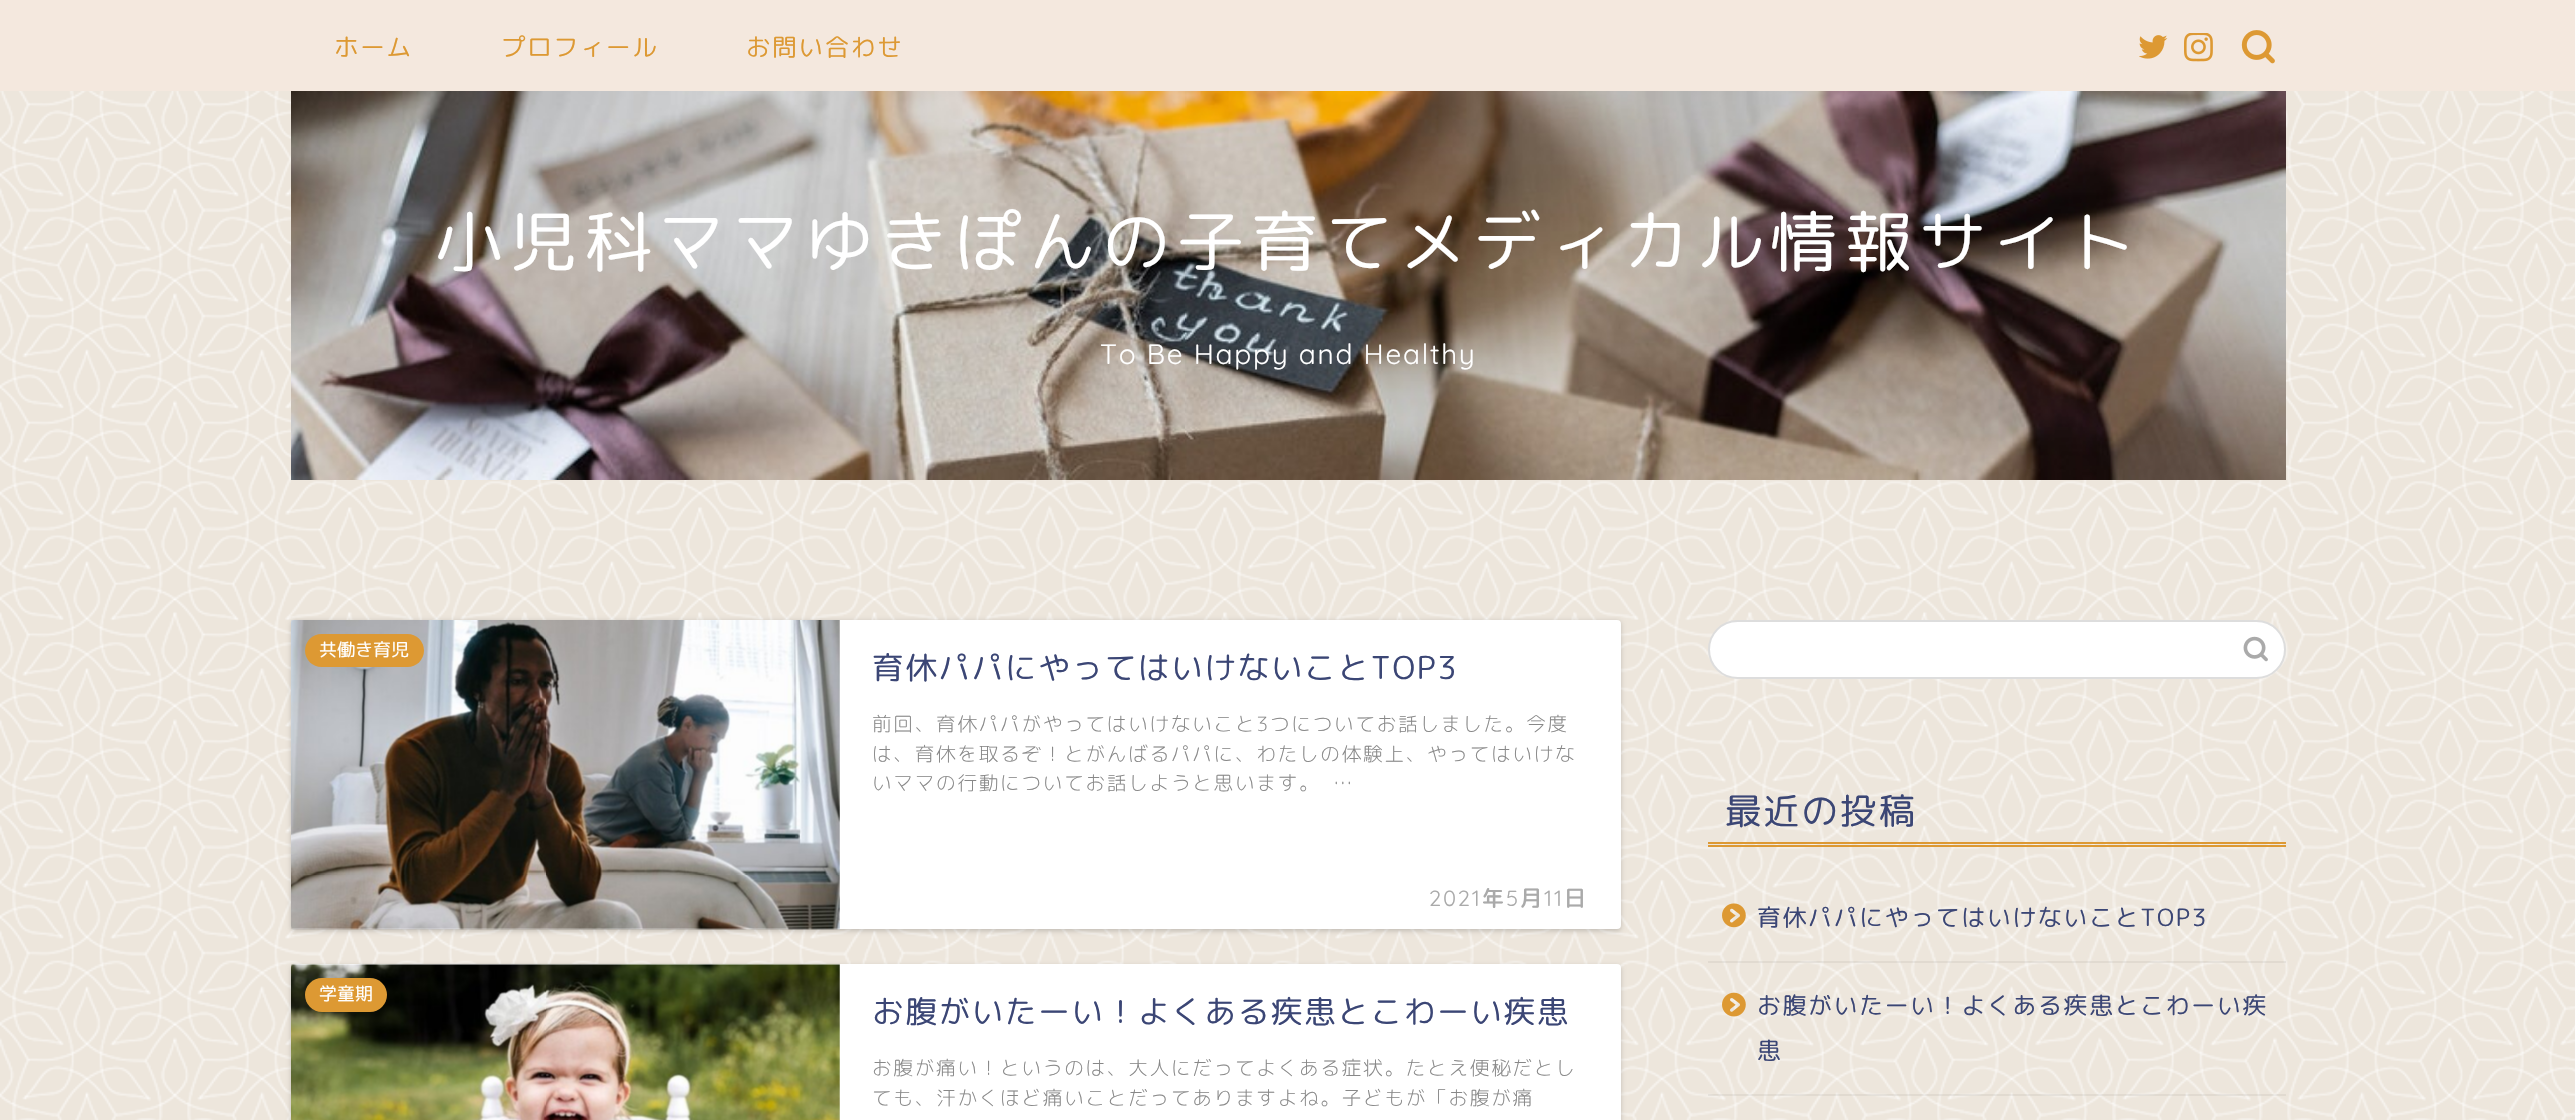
void draw(SkCanvas* canvas) {
    SkPaint paint;
    paint.setAntiAlias(true);
    auto face = [&](const char* family, int weight, float size, bool italic = false) {
        SkFontStyle style(weight, SkFontStyle::kNormal_Width,
            italic ? SkFontStyle::kItalic_Slant : SkFontStyle::kUpright_Slant);
        SkFont result(fontMgr->matchFamilyStyle(family, style), size);
        result.setSubpixel(true);
        return result;
    };
    auto write = [&](const char* s, float x, float y, const SkFont& font, SkColor color) {
        SkPaint ink(SkColor4f::FromColor(color));
        ink.setAntiAlias(true);
        canvas->drawString(s, x, y, font, ink);
    };
    auto writeSpaced = [&](const char* s, float x, float y, const SkFont& font, const SkPaint& ink, float letter, float word) {
        std::vector<SkGlyphID> glyphs(font.countText(s, strlen(s), SkTextEncoding::kUTF8));
        std::vector<float> xs(glyphs.size());
        font.textToGlyphs(s, strlen(s), SkTextEncoding::kUTF8, glyphs);
        font.getXPos(glyphs, xs, x);
        float extra = 0;
        for (size_t i = 0; i < glyphs.size(); i++) {
            xs[i] += extra;
            extra += letter + word * (glyphs[i] == font.unicharToGlyph(' '));
        }
        canvas->drawTextBlob(SkTextBlob::MakeFromPosHGlyphs(glyphs, xs, y, font), 0, 0, ink);
    };
    auto block = [&](float x, float y, float w, float h, SkColor color) {
        SkPaint ink(SkColor4f::FromColor(color));
        ink.setAntiAlias(true);
        canvas->drawRect(SkRect::MakeXYWH(x, y, w, h), ink);
    };
    auto card = [&](float x, float y, float w, float h, float radius, SkColor color) {
        SkPaint ink(SkColor4f::FromColor(color));
        ink.setAntiAlias(true);
        canvas->drawRoundRect(SkRect::MakeXYWH(x, y, w, h), radius, radius, ink);
    };
    auto paste = [&](const char* path, float x, float y, float w, float h) {
        auto image = SkImages::DeferredFromEncodedData(SkData::MakeFromFileName(path));
        canvas->drawImageRect(image, SkRect::MakeXYWH(x, y, w, h), SkSamplingOptions());
    };
    canvas->clear(SkColorSetRGB(237, 230, 220));
    paste("pic1.png", 0, 91, 2575, 1029);
    block(0, 0, 2575, 91, SkColorSetRGB(244, 232, 222));
    auto kFont1 = face("Rounded Mplus 1c", 400, 24.5f);
    paint.setColor(SkColorSetRGB(221, 153, 51));
    writeSpaced("ホーム", 334, 56, kFont1, paint, 1.75f, 0);
    writeSpaced("プロフィール", 501, 56, kFont1, paint, 1.75f, 0);
    writeSpaced("お問い合わせ", 746, 56, kFont1, paint, 1.75f, 0);
    paste("pic2.png", 2139, 35, 29, 24);
    paste("pic3.png", 2184, 33, 29, 29);
    paste("pic4.png", 2241, 30, 34, 34);
    paste("pic5.png", 291, 91, 1995, 389);
    auto kFont2 = face("Rounded Mplus 1c", 400, 67.2f);
    paint.setColor(SK_ColorWHITE);
    writeSpaced("小児科ママゆきぽんの子育てメディカル情報サイト", 435, 266, kFont2, paint, 7, 0);
    auto kFont3 = face("Quicksand", 300, 28);
    writeSpaced("To Be Happy and Healthy", 1100, 364, kFont3, paint, 1.75f, 0);
    paint.setColor(SkColorSetARGB(46, 0, 0, 0));
    paint.setMaskFilter(SkMaskFilter::MakeBlur(kNormal_SkBlurStyle, 2.5f));
    canvas->drawRoundRect(SkRect::MakeXYWH(291, 621, 1330, 310), 4, 4, paint);
    paint.setMaskFilter(nullptr);
    card(291, 620, 1330, 309, 4, SK_ColorWHITE);
    paste("pic6.png", 291, 620, 549, 310);
    card(305, 634, 119, 33, 16.5f, SkColorSetRGB(221, 153, 51));
    auto kFont4 = face("Rounded Mplus 1c", 400, 18);
    write("共働き育児", 319, 656, kFont4, SK_ColorWHITE);
    auto kFont5 = face("Rounded Mplus 1c", 400, 31.5f);
    paint.setColor(SkColorSetRGB(59, 70, 117));
    writeSpaced("育休パパにやってはいけないことTOP3", 872, 679, kFont5, paint, 1.75f, 0);
    auto kFont6 = face("Rounded Mplus 1c", 300, 19.6f);
    paint.setColor(SkColorSetRGB(136, 136, 136));
    writeSpaced("前回、育休パパがやってはいけないこと3つについてお話しました。今度", 872, 731, kFont6, paint, 1.75f, 0);
    writeSpaced("は、育休を取るぞ！とがんばるパパに、わたしの体験上、やってはいけな", 872, 761, kFont6, paint, 1.75f, 0);
    writeSpaced("いママの行動についてお話しようと思います。", 872, 790, kFont6, paint, 1.75f, 0);
    writeSpaced("…", 1333, 790, kFont6, paint, 1.75f, 0);
    auto kFont7 = face("Quicksand", 300, 22);
    paint.setColor(SkColorSetRGB(170, 170, 170));
    writeSpaced("2021", 1429, 906, kFont7, paint, 1.75f, 0);
    auto kFont8 = face("Rounded Mplus 1c", 500, 22);
    writeSpaced("年", 1482, 906, kFont8, paint, 1.75f, 0);
    writeSpaced("5", 1506, 906, kFont7, paint, 1.75f, 0);
    writeSpaced("月", 1520, 906, kFont8, paint, 1.75f, 0);
    writeSpaced("11", 1544, 906, kFont7, paint, 1.75f, 0);
    writeSpaced("日", 1564, 906, kFont8, paint, 1.75f, 0);
    paint.setColor(SkColorSetARGB(46, 0, 0, 0));
    paint.setMaskFilter(SkMaskFilter::MakeBlur(kNormal_SkBlurStyle, 2.5f));
    canvas->drawRoundRect(SkRect::MakeXYWH(291, 966, 1330, 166), 4, 4, paint);
    paint.setMaskFilter(nullptr);
    card(291, 964, 1330, 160, 4, SK_ColorWHITE);
    paste("pic7.png", 291, 963, 549, 157);
    card(305, 978, 82, 34, 17, SkColorSetRGB(221, 153, 51));
    write("学童期", 319, 1000, kFont4, SK_ColorWHITE);
    paint.setColor(SkColorSetRGB(59, 70, 117));
    writeSpaced("お腹がいたーい！よくある疾患とこわーい疾患", 872, 1023, kFont5, paint, 1.75f, 0);
    paint.setColor(SkColorSetRGB(136, 136, 136));
    writeSpaced("お腹が痛い！というのは、大人にだってよくある症状。たとえ便秘だとし", 872, 1075, kFont6, paint, 1.75f, 0);
    writeSpaced("ても、汗かくほど痛いことだってありますよね。子どもが「お腹が痛", 872, 1105, kFont6, paint, 1.75f, 0);
    paint.setColor(SK_ColorWHITE);
    canvas->drawRoundRect(SkRect::MakeXYWH(1709, 621, 576, 57), 28.5f, 28.5f, paint);
    paint.setStyle(SkPaint::kStroke_Style);
    paint.setStrokeWidth(2);
    paint.setColor(SkColorSetRGB(221, 221, 221));
    canvas->drawRoundRect(SkRect::MakeXYWH(1709, 621, 576, 57), 28.5f, 28.5f, paint);
    paste("pic8.png", 2243, 636, 25, 26);
    block(1708, 842, 578, 2, SkColorSetRGB(221, 153, 51));
    block(1708, 845, 578, 2, SkColorSetRGB(221, 153, 51));
    auto kFont9 = face("Rounded Mplus 1c", 400, 36.5f);
    paint.setStyle(SkPaint::kFill_Style);
    paint.setColor(SkColorSetRGB(59, 70, 117));
    writeSpaced("最近の投稿", 1725, 824, kFont9, paint, 1.75f, 0);
    block(1708, 961, 578, 2, SkColorSetARGB(13, 0, 0, 0));
    paste("pic9.png", 1722, 903, 24, 25);
    auto kFont10 = face("Rounded Mplus 1c", 400, 23.8f);
    writeSpaced("育休パパにやってはいけないことTOP3", 1757, 926, kFont10, paint, 1.75f, 0);
    block(1708, 1094, 578, 2, SkColorSetARGB(13, 0, 0, 0));
    paste("pic10.png", 1722, 992, 24, 25);
    writeSpaced("お腹がいたーい！よくある疾患とこわーい疾", 1757, 1014, kFont10, paint, 1.75f, 0);
    writeSpaced("患", 1757, 1059, kFont10, paint, 1.75f, 0);
}
